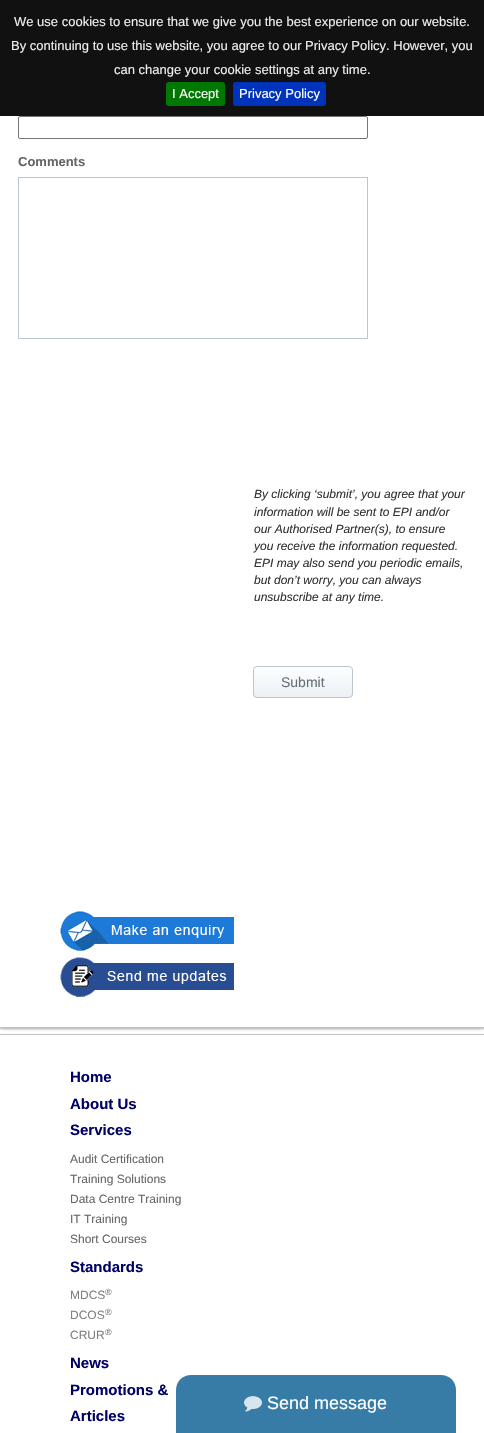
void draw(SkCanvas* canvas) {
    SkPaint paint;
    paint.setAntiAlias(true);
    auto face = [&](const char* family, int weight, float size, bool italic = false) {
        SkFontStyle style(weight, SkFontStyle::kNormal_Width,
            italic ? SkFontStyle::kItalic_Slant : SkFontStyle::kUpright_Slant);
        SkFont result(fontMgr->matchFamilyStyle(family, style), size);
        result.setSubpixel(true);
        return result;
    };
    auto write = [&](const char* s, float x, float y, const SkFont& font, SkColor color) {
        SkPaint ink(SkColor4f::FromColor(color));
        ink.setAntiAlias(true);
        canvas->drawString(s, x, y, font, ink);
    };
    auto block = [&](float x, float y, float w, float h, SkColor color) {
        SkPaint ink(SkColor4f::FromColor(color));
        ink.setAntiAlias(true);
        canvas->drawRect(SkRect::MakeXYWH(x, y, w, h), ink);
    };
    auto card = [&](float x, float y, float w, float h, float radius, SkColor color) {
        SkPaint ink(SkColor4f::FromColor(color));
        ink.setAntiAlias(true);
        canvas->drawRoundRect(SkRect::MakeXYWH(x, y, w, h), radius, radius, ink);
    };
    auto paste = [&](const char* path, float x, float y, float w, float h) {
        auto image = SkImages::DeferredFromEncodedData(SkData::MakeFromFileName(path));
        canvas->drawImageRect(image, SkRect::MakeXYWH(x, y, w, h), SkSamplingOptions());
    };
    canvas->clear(SK_ColorWHITE);
    paint.setColor(SkColorSetRGB(192, 192, 192));
    paint.setMaskFilter(SkMaskFilter::MakeBlur(kNormal_SkBlurStyle, 1));
    canvas->drawRect(SkRect::MakeXYWH(-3, -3, 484, 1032), paint);
    paint.setMaskFilter(nullptr);
    paint.setMaskFilter(SkMaskFilter::MakeBlur(kNormal_SkBlurStyle, 1));
    canvas->drawRect(SkRect::MakeXYWH(3, -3, 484, 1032), paint);
    paint.setMaskFilter(nullptr);
    block(0, 0, 484, 116, SkColorSetRGB(17, 17, 17));
    auto kFont1 = face("Liberation Sans", 400, 13);
    write("We use cookies to ensure that we give you the best experience on our website.", 14, 26, kFont1, SkColorSetRGB(238, 238, 238));
    write("By continuing to use this website, you agree to our Privacy Policy. However, you", 11, 50, kFont1, SkColorSetRGB(238, 238, 238));
    write("can change your cookie settings at any time.", 114, 74, kFont1, SkColorSetRGB(238, 238, 238));
    card(166, 82, 59, 24, 3, SkColorSetRGB(0, 119, 0));
    write("I Accept", 172, 98, kFont1, SK_ColorWHITE);
    card(233, 82, 93, 24, 3, SkColorSetRGB(0, 51, 187));
    write("Privacy Policy", 239, 98, kFont1, SK_ColorWHITE);
    block(0, 116, 484, 911, SK_ColorWHITE);
    paint.setStyle(SkPaint::kStroke_Style);
    paint.setStrokeWidth(1);
    paint.setColor(SkColorSetRGB(118, 118, 118));
    canvas->drawRoundRect(SkRect::MakeXYWH(18.5f, 116.5f, 349, 22), 1.5f, 1.5f, paint);
    auto kFont2 = face("Liberation Sans", 700, 13);
    write("Comments", 18, 166, kFont2, SkColorSetRGB(102, 102, 102));
    paint.setColor(SkColorSetRGB(186, 198, 210));
    canvas->drawRect(SkRect::MakeXYWH(18.5f, 177.5f, 349, 161), paint);
    auto kFont3 = face("Liberation Sans", 400, 12, true);
    write("By clicking ‘submit’, you agree that your", 254, 498, kFont3, SkColorSetRGB(51, 51, 51));
    write("information will be sent to EPI and/or", 254, 516, kFont3, SkColorSetRGB(51, 51, 51));
    write("our Authorised Partner(s), to ensure", 254, 533, kFont3, SkColorSetRGB(51, 51, 51));
    write("you receive the information requested.", 254, 550, kFont3, SkColorSetRGB(51, 51, 51));
    write("EPI may also send you periodic emails,", 254, 567, kFont3, SkColorSetRGB(51, 51, 51));
    write("but don’t worry, you can always", 254, 584, kFont3, SkColorSetRGB(51, 51, 51));
    write("unsubscribe at any time.", 254, 601, kFont3, SkColorSetRGB(51, 51, 51));
    canvas->save();
    canvas->clipPath(SkPathBuilder().moveTo(257, 666).lineTo(349, 666).cubicTo(351, 666, 353, 668, 353, 670).lineTo(353, 694).cubicTo(353, 696, 351, 698, 349, 698).lineTo(257, 698).cubicTo(255, 698, 253, 696, 253, 694).lineTo(253, 670).cubicTo(253, 668, 255, 666, 257, 666).close().detach(), true);
    paint.setStyle(SkPaint::kFill_Style);
    {
        const SkColor colors[] = {SkColorSetRGB(253, 255, 254), SkColorSetRGB(235, 240, 244)};
        const float stops[] = {0, 1};
        const SkPoint ends[] = {{254, 667}, {254, 697}};
        paint.setShader(SkGradientShader::MakeLinear(ends, colors, stops, 2, SkTileMode::kClamp));
        paint.setAlpha(255);
    }
    canvas->drawRect(SkRect::MakeXYWH(253, 667, 100, 30), paint);
    canvas->restore();
    paint.setStyle(SkPaint::kStroke_Style);
    paint.setShader(nullptr);
    paint.setColor(SkColorSetRGB(186, 198, 210));
    canvas->drawRoundRect(SkRect::MakeXYWH(253.5f, 666.5f, 99, 31), 3.5f, 3.5f, paint);
    auto kFont4 = face("Liberation Sans", 400, 14);
    write("Submit", 281, 687, kFont4, SkColorSetRGB(104, 111, 121));
    paste("pic1.png", 60, 911, 174, 40);
    paste("pic2.png", 60, 957, 174, 40);
    block(0, 1034, 484, 1, SkColorSetRGB(192, 192, 192));
    auto kFont5 = face("Liberation Sans", 700, 15);
    write("Home", 70, 1082, kFont5, SkColorSetRGB(0, 0, 102));
    write("About Us", 70, 1109, kFont5, SkColorSetRGB(0, 0, 102));
    write("Services", 70, 1135, kFont5, SkColorSetRGB(0, 0, 102));
    auto kFont6 = face("Liberation Sans", 400, 12);
    write("Audit Certification", 70, 1163, kFont6, SkColorSetRGB(102, 102, 102));
    write("Training Solutions", 70, 1183, kFont6, SkColorSetRGB(102, 102, 102));
    write("Data Centre Training", 70, 1203, kFont6, SkColorSetRGB(102, 102, 102));
    write("IT Training", 70, 1223, kFont6, SkColorSetRGB(102, 102, 102));
    write("Short Courses", 70, 1243, kFont6, SkColorSetRGB(102, 102, 102));
    write("Standards", 70, 1272, kFont5, SkColorSetRGB(0, 0, 102));
    write("MDCS", 70, 1299, kFont6, SkColorSetRGB(128, 128, 128));
    auto kFont7 = face("Liberation Sans", 400, 9);
    write("®", 105, 1295, kFont7, SkColorSetRGB(128, 128, 128));
    write("DCOS", 70, 1319, kFont6, SkColorSetRGB(128, 128, 128));
    write("®", 105, 1315, kFont7, SkColorSetRGB(128, 128, 128));
    write("CRUR", 70, 1339, kFont6, SkColorSetRGB(128, 128, 128));
    write("®", 105, 1335, kFont7, SkColorSetRGB(128, 128, 128));
    write("News", 70, 1368, kFont5, SkColorSetRGB(0, 0, 102));
    write("Promotions &", 70, 1395, kFont5, SkColorSetRGB(0, 0, 102));
    write("Articles", 70, 1421, kFont5, SkColorSetRGB(0, 0, 102));
    paint.setStyle(SkPaint::kFill_Style);
    paint.setColor(SkColorSetARGB(204, 5, 91, 145));
    canvas->drawPath(SkPathBuilder().moveTo(191, 1375).lineTo(441, 1375).cubicTo(449.5f, 1375, 456, 1381.5f, 456, 1390).lineTo(456, 1433).lineTo(176, 1433).lineTo(176, 1390).cubicTo(176, 1381.5f, 182.5f, 1375, 191, 1375).close().detach(), paint);
    paste("pic3.png", 244, 1396, 18, 16);
    auto kFont8 = face("Liberation Sans", 400, 18);
    write("Send message", 267, 1409, kFont8, SK_ColorWHITE);
}
